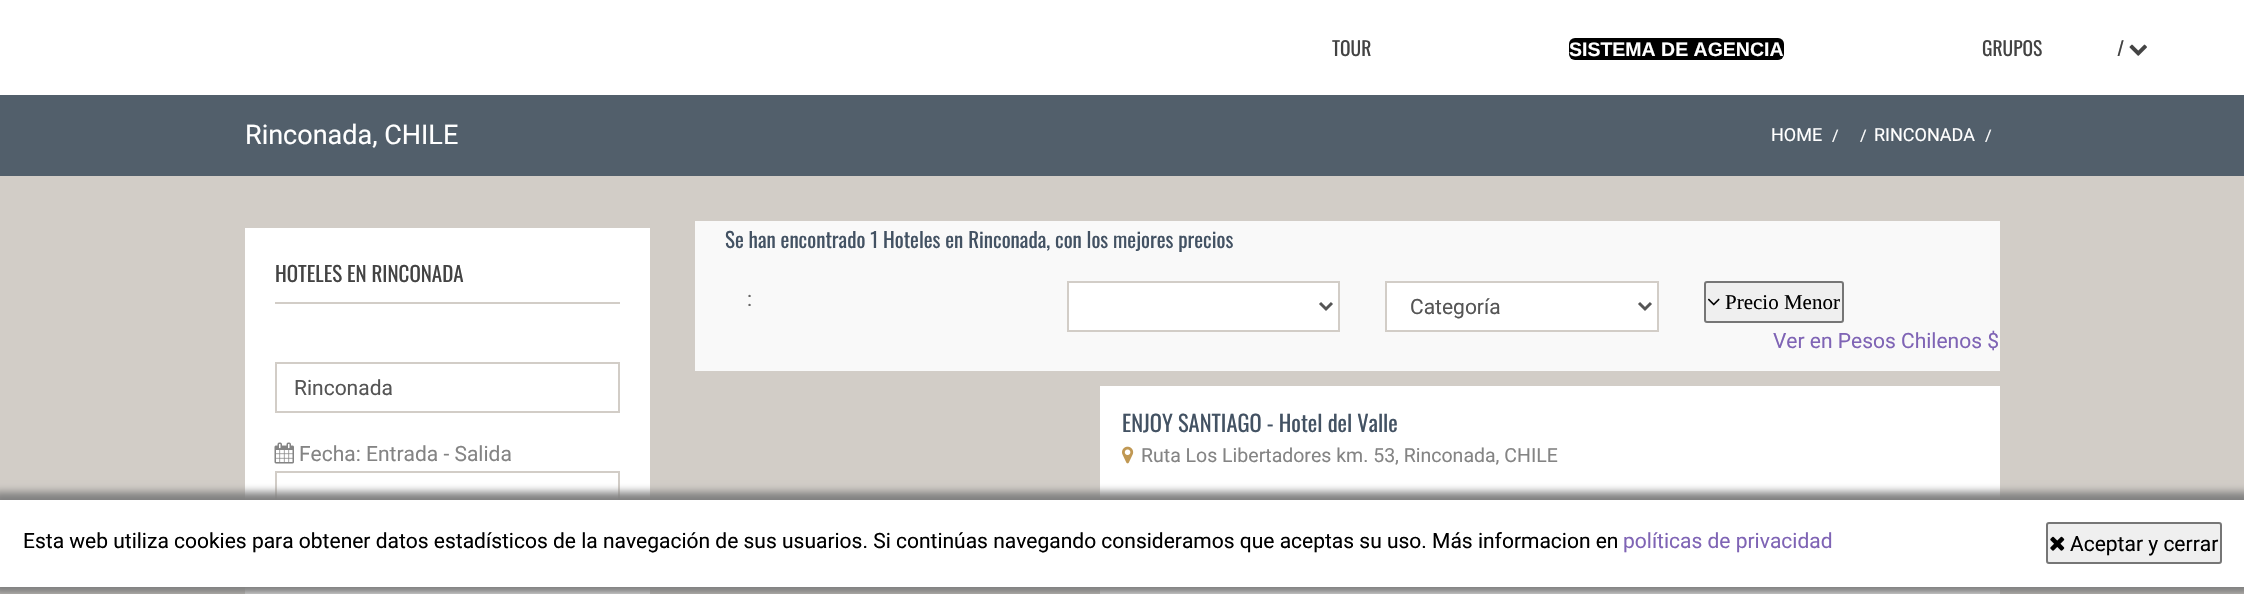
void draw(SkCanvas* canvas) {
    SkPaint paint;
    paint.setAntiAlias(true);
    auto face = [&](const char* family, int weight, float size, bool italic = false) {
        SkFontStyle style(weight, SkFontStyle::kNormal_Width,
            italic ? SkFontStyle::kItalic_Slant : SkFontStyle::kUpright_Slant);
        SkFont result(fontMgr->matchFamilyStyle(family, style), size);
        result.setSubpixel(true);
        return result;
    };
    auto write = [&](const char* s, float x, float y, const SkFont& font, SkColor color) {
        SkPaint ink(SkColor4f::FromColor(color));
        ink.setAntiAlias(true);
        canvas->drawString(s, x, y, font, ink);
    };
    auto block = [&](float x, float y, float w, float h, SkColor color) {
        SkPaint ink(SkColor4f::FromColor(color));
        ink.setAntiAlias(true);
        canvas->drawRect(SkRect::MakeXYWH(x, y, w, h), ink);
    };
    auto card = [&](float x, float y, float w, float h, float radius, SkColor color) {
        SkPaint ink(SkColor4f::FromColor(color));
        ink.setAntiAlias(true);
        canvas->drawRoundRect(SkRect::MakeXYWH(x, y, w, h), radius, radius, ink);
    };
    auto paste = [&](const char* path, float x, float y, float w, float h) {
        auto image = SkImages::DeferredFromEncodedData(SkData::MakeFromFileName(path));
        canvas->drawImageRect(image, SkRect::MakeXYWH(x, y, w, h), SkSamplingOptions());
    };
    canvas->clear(SK_ColorWHITE);
    auto kFont1 = face("Oswald", 400, 19.5f);
    write("TOUR", 1332, 56, kFont1, SkColorSetRGB(67, 67, 67));
    card(1569, 38, 215, 22, 6, SK_ColorBLACK);
    auto kFont2 = face("Liberation Sans", 700, 19.5f);
    write("SISTEMA DE AGENCIA", 1569, 56, kFont2, SK_ColorWHITE);
    write("GRUPOS", 1982, 56, kFont1, SkColorSetRGB(67, 67, 67));
    write("/", 2117, 56, kFont1, SkColorSetRGB(67, 67, 67));
    paste("pic1.png", 2129, 44, 18, 12);
    block(0, 95, 2244, 81, SkColorSetRGB(82, 95, 107));
    auto kFont3 = face("Roboto", 400, 27);
    write("Rinconada, CHILE", 245, 144, kFont3, SK_ColorWHITE);
    auto kFont4 = face("Roboto", 400, 18);
    write("HOME", 1771, 141, kFont4, SK_ColorWHITE);
    auto kFont5 = face("Roboto", 400, 16);
    write("/", 1832, 141, kFont5, SK_ColorWHITE);
    write("/", 1860, 141, kFont5, SK_ColorWHITE);
    write("RINCONADA", 1874, 141, kFont4, SK_ColorWHITE);
    write("/", 1985, 141, kFont5, SK_ColorWHITE);
    block(0, 176, 2244, 418, SkColorSetRGB(210, 205, 199));
    block(245, 228, 405, 366, SK_ColorWHITE);
    block(275, 302, 345, 2, SkColorSetRGB(210, 205, 199));
    auto kFont6 = face("Oswald", 400, 21);
    write("HOTELES EN RINCONADA", 275, 282, kFont6, SkColorSetRGB(67, 67, 67));
    paint.setStyle(SkPaint::kStroke_Style);
    paint.setStrokeWidth(2);
    paint.setColor(SkColorSetRGB(210, 205, 199));
    canvas->drawRect(SkRect::MakeXYWH(276, 363, 343, 49), paint);
    auto kFont7 = face("Roboto", 400, 21);
    write("Rinconada", 294, 395, kFont7, SkColorSetRGB(85, 85, 85));
    paste("pic2.png", 274, 442, 20, 22);
    write("Fecha: Entrada - Salida", 299, 461, kFont7, SkColorSetRGB(132, 132, 132));
    canvas->drawRect(SkRect::MakeXYWH(276, 472, 343, 49), paint);
    block(695, 221, 1305, 150, SkColorSetRGB(249, 249, 249));
    write("Se han encontrado 1 Hoteles en Rinconada, con los mejores precios", 725, 248, kFont6, SkColorSetRGB(67, 82, 99));
    write(":", 747, 306, kFont7, SkColorSetRGB(102, 102, 102));
    paint.setStyle(SkPaint::kFill_Style);
    paint.setColor(SK_ColorWHITE);
    canvas->drawRect(SkRect::MakeXYWH(1068, 282, 271, 49), paint);
    paint.setStyle(SkPaint::kStroke_Style);
    paint.setColor(SkColorSetRGB(210, 205, 199));
    canvas->drawRect(SkRect::MakeXYWH(1068, 282, 271, 49), paint);
    paint.setStrokeWidth(3);
    paint.setColor(SkColorSetRGB(85, 85, 85));
    canvas->drawPath(SkPathBuilder().moveTo(1320, 303).lineTo(1326, 309).lineTo(1332, 303).detach(), paint);
    paint.setStyle(SkPaint::kFill_Style);
    paint.setColor(SK_ColorWHITE);
    canvas->drawRect(SkRect::MakeXYWH(1386, 282, 272, 49), paint);
    paint.setStyle(SkPaint::kStroke_Style);
    paint.setStrokeWidth(2);
    paint.setColor(SkColorSetRGB(210, 205, 199));
    canvas->drawRect(SkRect::MakeXYWH(1386, 282, 272, 49), paint);
    paint.setStrokeWidth(3);
    paint.setColor(SkColorSetRGB(85, 85, 85));
    canvas->drawPath(SkPathBuilder().moveTo(1639, 303).lineTo(1645, 309).lineTo(1651, 303).detach(), paint);
    write("Categoría", 1410, 314, kFont7, SkColorSetRGB(85, 85, 85));
    paint.setStyle(SkPaint::kFill_Style);
    paint.setColor(SkColorSetRGB(239, 239, 239));
    canvas->drawRoundRect(SkRect::MakeXYWH(1705, 282, 138, 40), 2, 2, paint);
    paint.setStyle(SkPaint::kStroke_Style);
    paint.setStrokeWidth(2);
    paint.setColor(SkColorSetRGB(118, 118, 118));
    canvas->drawRoundRect(SkRect::MakeXYWH(1705, 282, 138, 40), 2, 2, paint);
    paste("pic3.png", 1707, 298, 13, 8);
    auto kFont8 = face("Liberation Serif", 400, 21);
    write("Precio Menor", 1725, 309, kFont8, SK_ColorBLACK);
    write("Ver en Pesos Chilenos $", 1773, 348, kFont7, SkColorSetRGB(127, 100, 181));
    block(1100, 386, 900, 208, SK_ColorWHITE);
    auto kFont9 = face("Oswald", 400, 22.5f);
    write("ENJOY SANTIAGO - Hotel del Valle", 1122, 432, kFont9, SkColorSetRGB(67, 82, 99));
    paste("pic4.png", 1122, 446, 12, 18);
    auto kFont10 = face("Roboto", 400, 19.5f);
    write("Ruta Los Libertadores km. 53, Rinconada, CHILE", 1141, 462, kFont10, SkColorSetRGB(132, 132, 132));
    paint.setStyle(SkPaint::kFill_Style);
    paint.setColor(SkColorSetRGB(128, 128, 128));
    paint.setMaskFilter(SkMaskFilter::MakeBlur(kNormal_SkBlurStyle, 4));
    canvas->drawRect(SkRect::MakeXYWH(-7, 492, 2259, 102), paint);
    paint.setMaskFilter(nullptr);
    block(0, 500, 2244, 87, SK_ColorWHITE);
    write("Esta web utiliza cookies para obtener datos estadísticos de la navegación de sus usuarios. Si continúas navegando consideramos que aceptas su uso. Más informacion en", 23, 548, kFont7, SK_ColorBLACK);
    write("políticas de privacidad", 1623, 548, kFont7, SkColorSetRGB(127, 100, 181));
    paint.setColor(SkColorSetRGB(239, 239, 239));
    canvas->drawRoundRect(SkRect::MakeXYWH(2047, 523, 174, 40), 2, 2, paint);
    paint.setStyle(SkPaint::kStroke_Style);
    paint.setColor(SkColorSetRGB(118, 118, 118));
    canvas->drawRoundRect(SkRect::MakeXYWH(2047, 523, 174, 40), 2, 2, paint);
    paste("pic5.png", 2050, 536, 15, 15);
    write("Aceptar y cerrar", 2070, 551, kFont7, SK_ColorBLACK);
}
